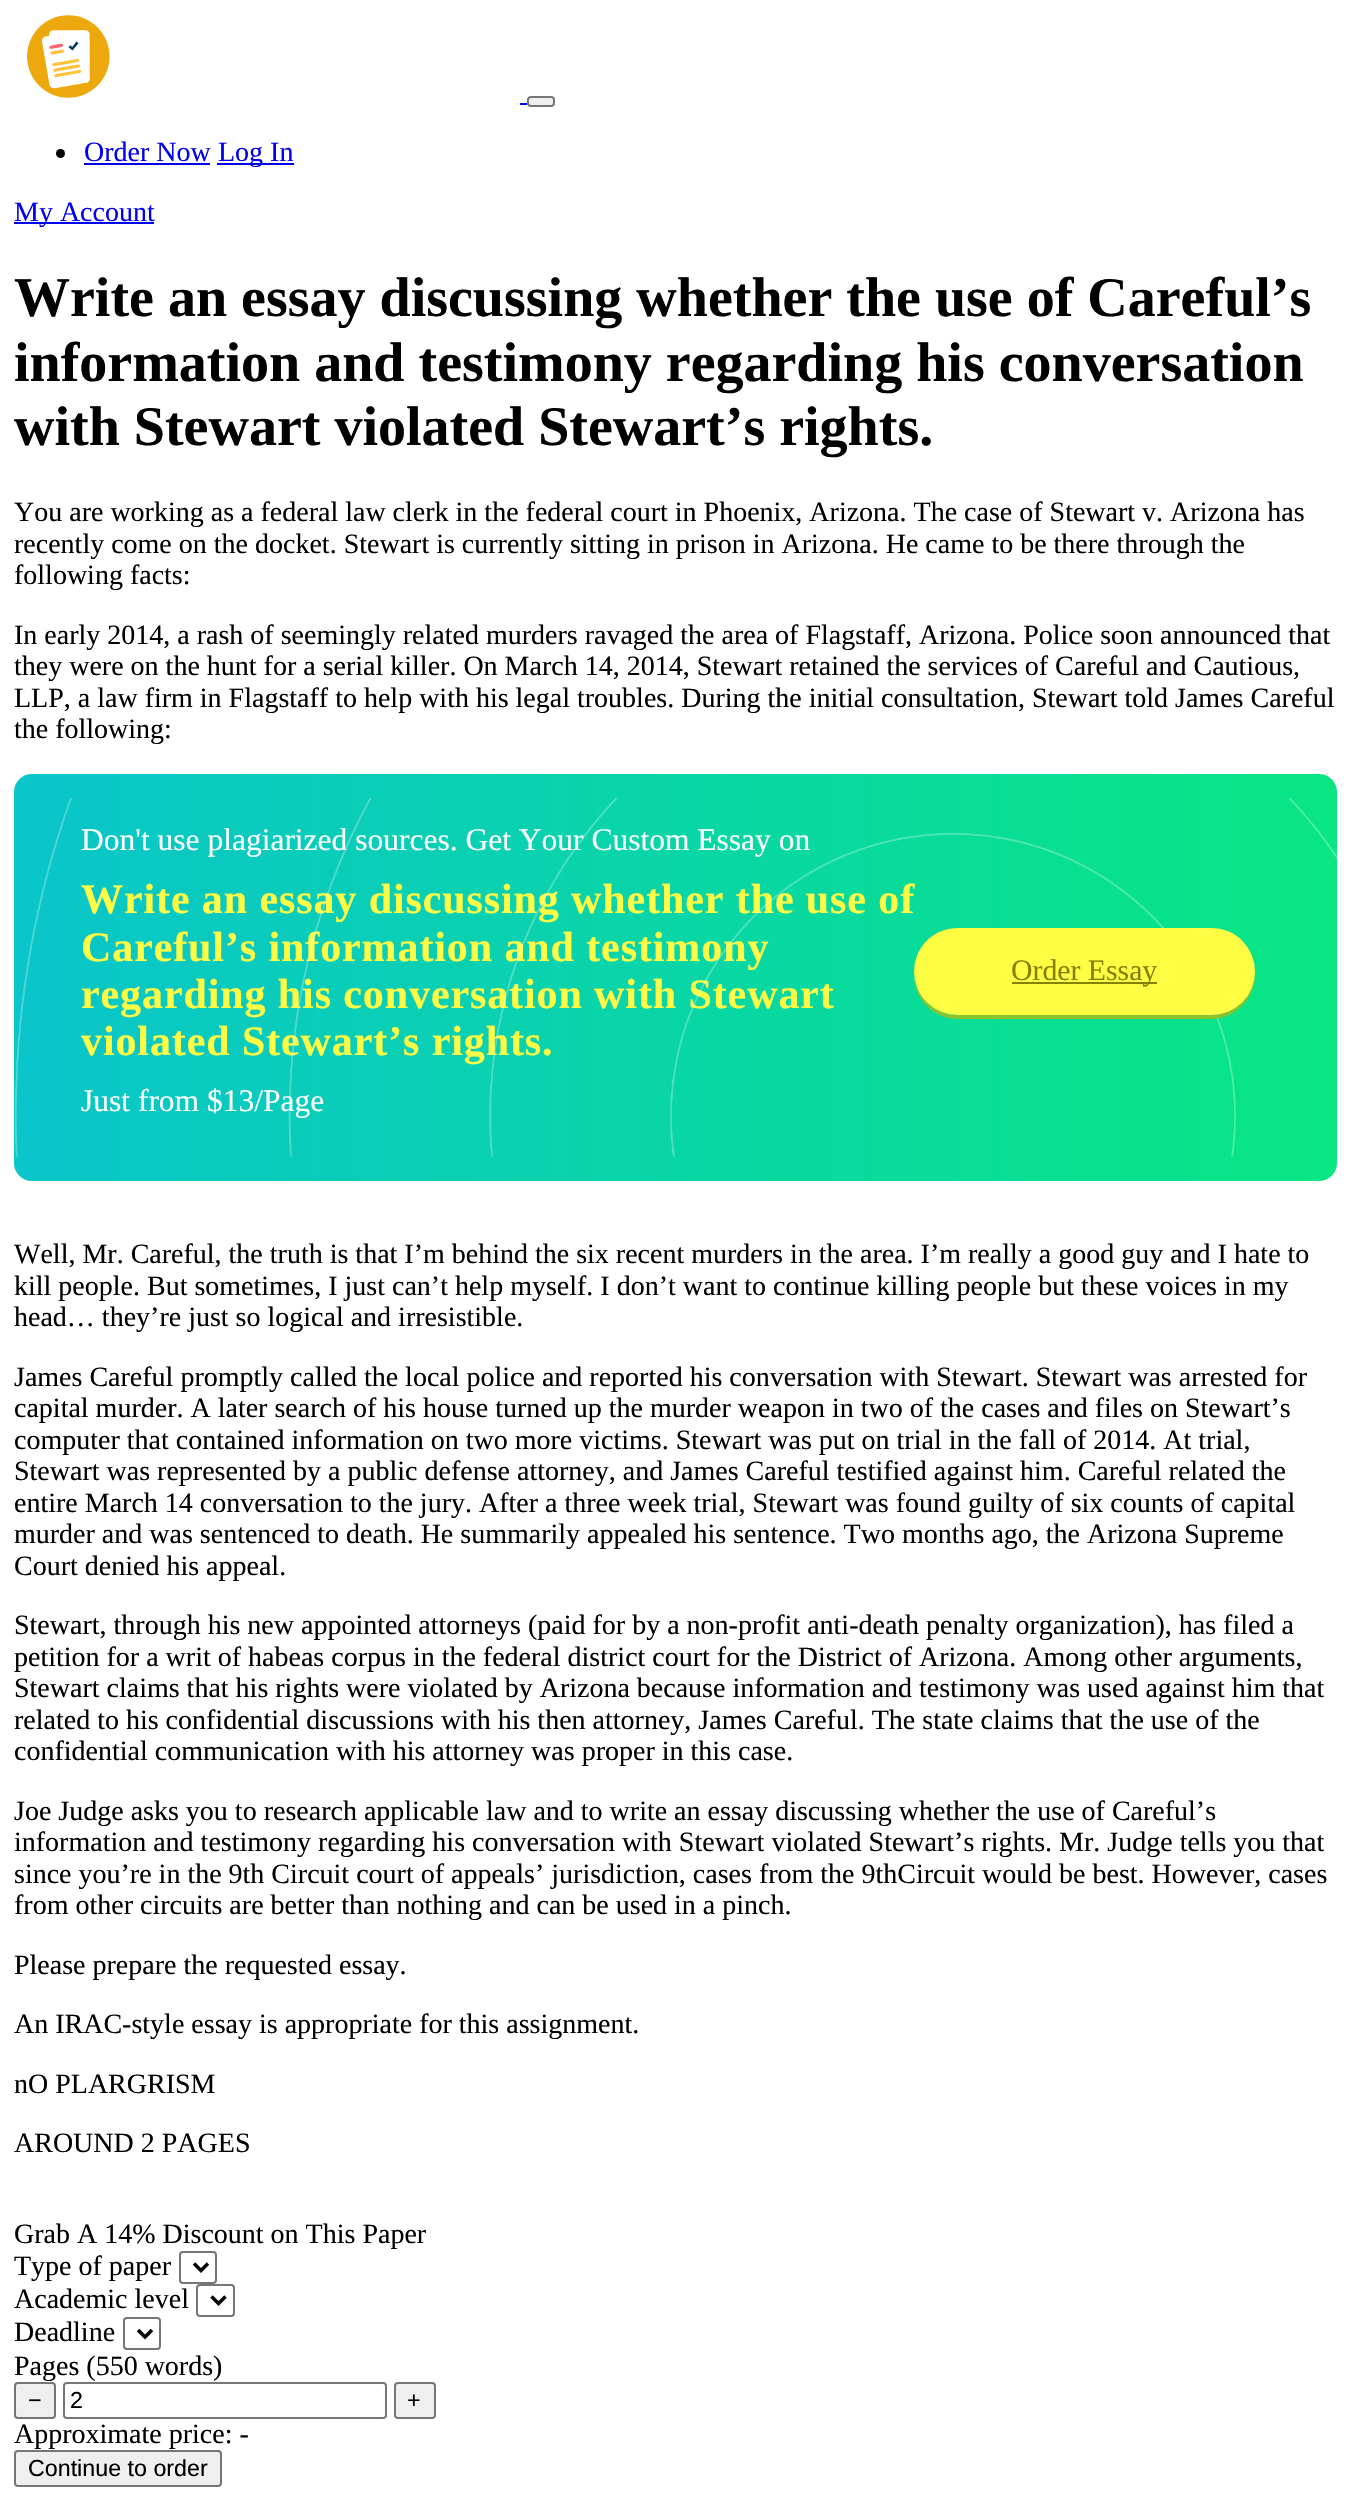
void draw(SkCanvas* canvas) {
    SkPaint paint;
    paint.setAntiAlias(true);
    auto face = [&](const char* family, int weight, float size, bool italic = false) {
        SkFontStyle style(weight, SkFontStyle::kNormal_Width,
            italic ? SkFontStyle::kItalic_Slant : SkFontStyle::kUpright_Slant);
        SkFont result(fontMgr->matchFamilyStyle(family, style), size);
        result.setSubpixel(true);
        return result;
    };
    auto write = [&](const char* s, float x, float y, const SkFont& font, SkColor color) {
        SkPaint ink(SkColor4f::FromColor(color));
        ink.setAntiAlias(true);
        canvas->drawString(s, x, y, font, ink);
    };
    auto writeSpaced = [&](const char* s, float x, float y, const SkFont& font, const SkPaint& ink, float letter, float word) {
        std::vector<SkGlyphID> glyphs(font.countText(s, strlen(s), SkTextEncoding::kUTF8));
        std::vector<float> xs(glyphs.size());
        font.textToGlyphs(s, strlen(s), SkTextEncoding::kUTF8, glyphs);
        font.getXPos(glyphs, xs, x);
        float extra = 0;
        for (size_t i = 0; i < glyphs.size(); i++) {
            xs[i] += extra;
            extra += letter + word * (glyphs[i] == font.unicharToGlyph(' '));
        }
        canvas->drawTextBlob(SkTextBlob::MakeFromPosHGlyphs(glyphs, xs, y, font), 0, 0, ink);
    };
    auto block = [&](float x, float y, float w, float h, SkColor color) {
        SkPaint ink(SkColor4f::FromColor(color));
        ink.setAntiAlias(true);
        canvas->drawRect(SkRect::MakeXYWH(x, y, w, h), ink);
    };
    auto card = [&](float x, float y, float w, float h, float radius, SkColor color) {
        SkPaint ink(SkColor4f::FromColor(color));
        ink.setAntiAlias(true);
        canvas->drawRoundRect(SkRect::MakeXYWH(x, y, w, h), radius, radius, ink);
    };
    auto paste = [&](const char* path, float x, float y, float w, float h) {
        auto image = SkImages::DeferredFromEncodedData(SkData::MakeFromFileName(path));
        canvas->drawImageRect(image, SkRect::MakeXYWH(x, y, w, h), SkSamplingOptions());
    };
    canvas->clear(SK_ColorWHITE);
    paste("pic1.png", 27, 15, 83, 83);
    block(520, 103, 7, 2, SkColorSetRGB(0, 0, 238));
    paint.setColor(SkColorSetRGB(239, 239, 239));
    canvas->drawRoundRect(SkRect::MakeXYWH(528, 97, 26, 9), 3, 3, paint);
    paint.setStyle(SkPaint::kStroke_Style);
    paint.setStrokeWidth(2);
    paint.setColor(SkColorSetRGB(118, 118, 118));
    canvas->drawRoundRect(SkRect::MakeXYWH(528, 97, 26, 9), 3, 3, paint);
    paint.setStyle(SkPaint::kFill_Style);
    paint.setColor(SK_ColorBLACK);
    canvas->drawCircle(60.5f, 153.5f, 4.5f, paint);
    auto kFont1 = face("Liberation Serif", 400, 28);
    write("Order Now", 84, 161, kFont1, SkColorSetRGB(0, 0, 238));
    block(84, 163, 126, 2, SkColorSetRGB(0, 0, 238));
    block(217, 163, 77, 2, SkColorSetRGB(0, 0, 238));
    write("Log In", 218, 161, kFont1, SkColorSetRGB(0, 0, 238));
    block(14, 222, 140, 2, SkColorSetRGB(0, 0, 238));
    write("My Account", 14, 221, kFont1, SkColorSetRGB(0, 0, 238));
    auto kFont2 = face("Liberation Serif", 700, 56);
    write("Write an essay discussing whether the use of Careful’s", 14, 316, kFont2, SK_ColorBLACK);
    write("information and testimony regarding his conversation", 14, 381, kFont2, SK_ColorBLACK);
    write("with Stewart violated Stewart’s rights.", 14, 445, kFont2, SK_ColorBLACK);
    write("You are working as a federal law clerk in the federal court in Phoenix, Arizona. The case of Stewart v. Arizona has", 14, 521, kFont1, SK_ColorBLACK);
    write("recently come on the docket. Stewart is currently sitting in prison in Arizona. He came to be there through the", 14, 553, kFont1, SK_ColorBLACK);
    write("following facts:", 14, 584, kFont1, SK_ColorBLACK);
    write("In early 2014, a rash of seemingly related murders ravaged the area of Flagstaff, Arizona. Police soon announced that", 14, 644, kFont1, SK_ColorBLACK);
    write("they were on the hunt for a serial killer. On March 14, 2014, Stewart retained the services of Careful and Cautious,", 14, 675, kFont1, SK_ColorBLACK);
    write("LLP, a law firm in Flagstaff to help with his legal troubles. During the initial consultation, Stewart told James Careful", 14, 707, kFont1, SK_ColorBLACK);
    write("the following:", 14, 738, kFont1, SK_ColorBLACK);
    {
        const SkColor colors[] = {SkColorSetRGB(10, 197, 202), SkColorSetRGB(9, 230, 131)};
        const float stops[] = {0, 1};
        const SkPoint ends[] = {{14, 977}, {1337, 977}};
        paint.setShader(SkGradientShader::MakeLinear(ends, colors, stops, 2, SkTileMode::kClamp));
        paint.setAlpha(255);
    }
    canvas->drawRoundRect(SkRect::MakeXYWH(14, 774, 1323, 407), 18, 18, paint);
    auto kFont3 = face("Liberation Serif", 400, 31.5f);
    write("Don't use plagiarized sources. Get Your Custom Essay on", 81, 850, kFont3, SK_ColorWHITE);
    auto kFont4 = face("Liberation Serif", 700, 42);
    paint.setShader(nullptr);
    paint.setColor(SkColorSetRGB(255, 252, 69));
    writeSpaced("Write an essay discussing whether the use of", 81, 913, kFont4, paint, 0.9f, 0);
    writeSpaced("Careful’s information and testimony", 81, 961, kFont4, paint, 0.9f, 0);
    writeSpaced("regarding his conversation with Stewart", 81, 1008, kFont4, paint, 0.9f, 0);
    writeSpaced("violated Stewart’s rights.", 81, 1055, kFont4, paint, 0.9f, 0);
    write("Just from $13/Page", 81, 1111, kFont3, SK_ColorWHITE);
    paste("pic2.png", 14, 798, 1323, 359);
    paint.setColor(SkColorSetRGB(137, 195, 46));
    canvas->drawPath(SkPathBuilder().moveTo(914, 979).cubicTo(916, 1001, 935, 1019, 958, 1019).lineTo(1211, 1019).cubicTo(1235, 1019, 1255, 999, 1255, 975).lineTo(1255, 970).lineTo(1255, 971).cubicTo(1255, 995, 1235, 1015, 1211, 1015).lineTo(957, 1015).cubicTo(936, 1015, 918, 999, 914, 979).close().detach(), paint);
    card(914, 928, 341, 87, 43.5f, SkColorSetRGB(255, 252, 68));
    block(1012, 982, 145, 2, SkColorSetRGB(131, 129, 0));
    auto kFont5 = face("Liberation Serif", 400, 29.75f);
    write("Order Essay", 1011, 980, kFont5, SkColorSetRGB(131, 129, 0));
    write("Well, Mr. Careful, the truth is that I’m behind the six recent murders in the area. I’m really a good guy and I hate to", 14, 1263, kFont1, SK_ColorBLACK);
    write("kill people. But sometimes, I just can’t help myself. I don’t want to continue killing people but these voices in my", 14, 1295, kFont1, SK_ColorBLACK);
    write("head… they’re just so logical and irresistible.", 14, 1326, kFont1, SK_ColorBLACK);
    write("James Careful promptly called the local police and reported his conversation with Stewart. Stewart was arrested for", 14, 1386, kFont1, SK_ColorBLACK);
    write("capital murder. A later search of his house turned up the murder weapon in two of the cases and files on Stewart’s", 14, 1417, kFont1, SK_ColorBLACK);
    write("computer that contained information on two more victims. Stewart was put on trial in the fall of 2014. At trial,", 14, 1449, kFont1, SK_ColorBLACK);
    write("Stewart was represented by a public defense attorney, and James Careful testified against him. Careful related the", 14, 1480, kFont1, SK_ColorBLACK);
    write("entire March 14 conversation to the jury. After a three week trial, Stewart was found guilty of six counts of capital", 14, 1512, kFont1, SK_ColorBLACK);
    write("murder and was sentenced to death. He summarily appealed his sentence. Two months ago, the Arizona Supreme", 14, 1543, kFont1, SK_ColorBLACK);
    write("Court denied his appeal.", 14, 1575, kFont1, SK_ColorBLACK);
    write("Stewart, through his new appointed attorneys (paid for by a non-profit anti-death penalty organization), has filed a", 14, 1634, kFont1, SK_ColorBLACK);
    write("petition for a writ of habeas corpus in the federal district court for the District of Arizona. Among other arguments,", 14, 1666, kFont1, SK_ColorBLACK);
    write("Stewart claims that his rights were violated by Arizona because information and testimony was used against him that", 14, 1697, kFont1, SK_ColorBLACK);
    write("related to his confidential discussions with his then attorney, James Careful. The state claims that the use of the", 14, 1729, kFont1, SK_ColorBLACK);
    write("confidential communication with his attorney was proper in this case.", 14, 1760, kFont1, SK_ColorBLACK);
    write("Joe Judge asks you to research applicable law and to write an essay discussing whether the use of Careful’s", 14, 1820, kFont1, SK_ColorBLACK);
    write("information and testimony regarding his conversation with Stewart violated Stewart’s rights. Mr. Judge tells you that", 14, 1851, kFont1, SK_ColorBLACK);
    write("since you’re in the 9th Circuit court of appeals’ jurisdiction, cases from the 9thCircuit would be best. However, cases", 14, 1883, kFont1, SK_ColorBLACK);
    write("from other circuits are better than nothing and can be used in a pinch.", 14, 1914, kFont1, SK_ColorBLACK);
    write("Please prepare the requested essay.", 14, 1974, kFont1, SK_ColorBLACK);
    write("An IRAC-style essay is appropriate for this assignment.", 14, 2033, kFont1, SK_ColorBLACK);
    write("nO PLARGRISM", 14, 2093, kFont1, SK_ColorBLACK);
    write("AROUND 2 PAGES", 14, 2152, kFont1, SK_ColorBLACK);
    write("Grab A 14% Discount on This Paper", 14, 2243, kFont1, SK_ColorBLACK);
    write("Type of paper", 14, 2275, kFont1, SK_ColorBLACK);
    paint.setStyle(SkPaint::kStroke_Style);
    paint.setColor(SkColorSetRGB(118, 118, 118));
    canvas->drawRoundRect(SkRect::MakeXYWH(180, 2252, 36, 31), 3, 3, paint);
    paint.setStrokeWidth(3.5f);
    paint.setColor(SK_ColorBLACK);
    canvas->drawPath(SkPathBuilder().moveTo(194, 2263.5f).lineTo(201, 2270.5f).lineTo(208, 2263.5f).detach(), paint);
    write("Academic level", 14, 2308, kFont1, SK_ColorBLACK);
    paint.setStrokeWidth(2);
    paint.setColor(SkColorSetRGB(118, 118, 118));
    canvas->drawRoundRect(SkRect::MakeXYWH(197, 2285, 37, 31), 3, 3, paint);
    paint.setStrokeWidth(3.5f);
    paint.setColor(SK_ColorBLACK);
    canvas->drawPath(SkPathBuilder().moveTo(211.5f, 2296.5f).lineTo(218.5f, 2303.5f).lineTo(225.5f, 2296.5f).detach(), paint);
    write("Deadline", 14, 2341, kFont1, SK_ColorBLACK);
    paint.setStrokeWidth(2);
    paint.setColor(SkColorSetRGB(118, 118, 118));
    canvas->drawRoundRect(SkRect::MakeXYWH(124, 2318, 36, 31), 3, 3, paint);
    paint.setStrokeWidth(3.5f);
    paint.setColor(SK_ColorBLACK);
    canvas->drawPath(SkPathBuilder().moveTo(138, 2330).lineTo(145, 2337).lineTo(152, 2330).detach(), paint);
    write("Pages (550 words)", 14, 2375, kFont1, SK_ColorBLACK);
    paint.setStyle(SkPaint::kFill_Style);
    paint.setColor(SkColorSetRGB(239, 239, 239));
    canvas->drawRoundRect(SkRect::MakeXYWH(15, 2383, 40, 35), 3, 3, paint);
    paint.setStyle(SkPaint::kStroke_Style);
    paint.setStrokeWidth(2);
    paint.setColor(SkColorSetRGB(118, 118, 118));
    canvas->drawRoundRect(SkRect::MakeXYWH(15, 2383, 40, 35), 3, 3, paint);
    auto kFont6 = face("Liberation Sans", 400, 23.25f);
    write("−", 28, 2408, kFont6, SK_ColorBLACK);
    canvas->drawRoundRect(SkRect::MakeXYWH(64, 2383, 322, 35), 3, 3, paint);
    write("2", 70, 2408, kFont6, SK_ColorBLACK);
    paint.setStyle(SkPaint::kFill_Style);
    paint.setColor(SkColorSetRGB(239, 239, 239));
    canvas->drawRoundRect(SkRect::MakeXYWH(395, 2383, 40, 35), 3, 3, paint);
    paint.setStyle(SkPaint::kStroke_Style);
    paint.setColor(SkColorSetRGB(118, 118, 118));
    canvas->drawRoundRect(SkRect::MakeXYWH(395, 2383, 40, 35), 3, 3, paint);
    write("+", 407, 2408, kFont6, SK_ColorBLACK);
    write("Approximate price: -", 14, 2443, kFont1, SK_ColorBLACK);
    paint.setStyle(SkPaint::kFill_Style);
    paint.setColor(SkColorSetRGB(239, 239, 239));
    canvas->drawRoundRect(SkRect::MakeXYWH(15, 2451, 206, 35), 3, 3, paint);
    paint.setStyle(SkPaint::kStroke_Style);
    paint.setColor(SkColorSetRGB(118, 118, 118));
    canvas->drawRoundRect(SkRect::MakeXYWH(15, 2451, 206, 35), 3, 3, paint);
    write("Continue to order", 28, 2476, kFont6, SK_ColorBLACK);
}
